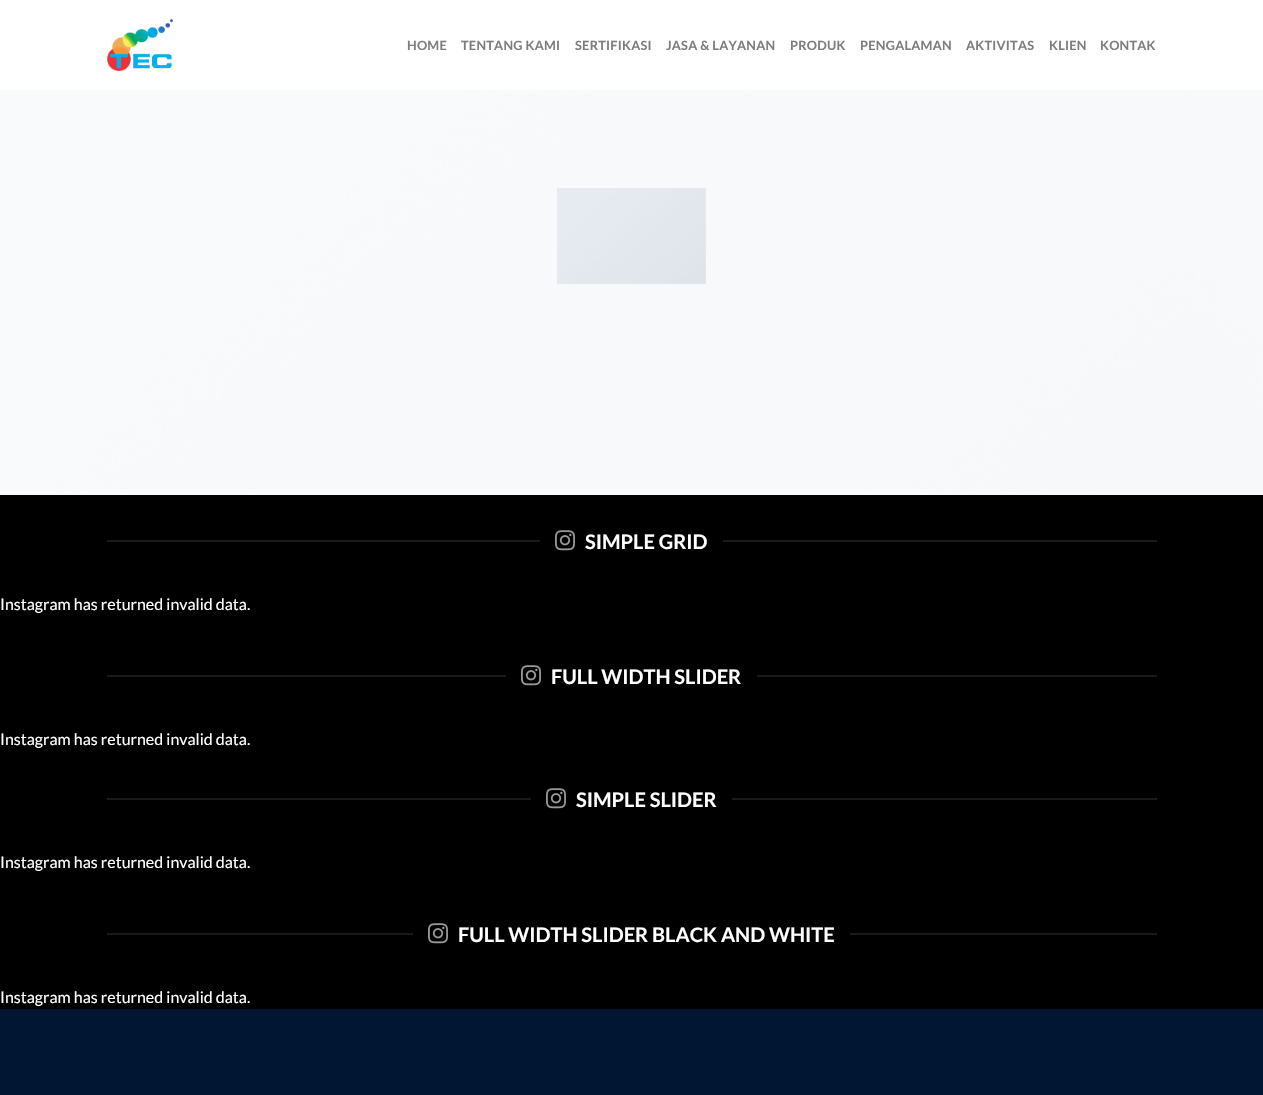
void draw(SkCanvas* canvas) {
    SkPaint paint;
    paint.setAntiAlias(true);
    auto face = [&](const char* family, int weight, float size, bool italic = false) {
        SkFontStyle style(weight, SkFontStyle::kNormal_Width,
            italic ? SkFontStyle::kItalic_Slant : SkFontStyle::kUpright_Slant);
        SkFont result(fontMgr->matchFamilyStyle(family, style), size);
        result.setSubpixel(true);
        return result;
    };
    auto write = [&](const char* s, float x, float y, const SkFont& font, SkColor color) {
        SkPaint ink(SkColor4f::FromColor(color));
        ink.setAntiAlias(true);
        canvas->drawString(s, x, y, font, ink);
    };
    auto writeSpaced = [&](const char* s, float x, float y, const SkFont& font, const SkPaint& ink, float letter, float word) {
        std::vector<SkGlyphID> glyphs(font.countText(s, strlen(s), SkTextEncoding::kUTF8));
        std::vector<float> xs(glyphs.size());
        font.textToGlyphs(s, strlen(s), SkTextEncoding::kUTF8, glyphs);
        font.getXPos(glyphs, xs, x);
        float extra = 0;
        for (size_t i = 0; i < glyphs.size(); i++) {
            xs[i] += extra;
            extra += letter + word * (glyphs[i] == font.unicharToGlyph(' '));
        }
        canvas->drawTextBlob(SkTextBlob::MakeFromPosHGlyphs(glyphs, xs, y, font), 0, 0, ink);
    };
    auto block = [&](float x, float y, float w, float h, SkColor color) {
        SkPaint ink(SkColor4f::FromColor(color));
        ink.setAntiAlias(true);
        canvas->drawRect(SkRect::MakeXYWH(x, y, w, h), ink);
    };
    auto paste = [&](const char* path, float x, float y, float w, float h) {
        auto image = SkImages::DeferredFromEncodedData(SkData::MakeFromFileName(path));
        canvas->drawImageRect(image, SkRect::MakeXYWH(x, y, w, h), SkSamplingOptions());
    };
    canvas->clear(SK_ColorBLACK);
    block(0, 0, 1263, 90, SK_ColorWHITE);
    paste("pic1.png", 107, 19, 66, 52);
    auto kFont1 = face("Lato", 700, 12.75f);
    paint.setColor(SkColorSetRGB(125, 125, 125));
    writeSpaced("HOME", 407, 50, kFont1, paint, 0.25f, 0);
    writeSpaced("TENTANG KAMI", 461, 50, kFont1, paint, 0.25f, 0);
    writeSpaced("SERTIFIKASI", 575, 50, kFont1, paint, 0.25f, 0);
    writeSpaced("JASA & LAYANAN", 666, 50, kFont1, paint, 0.25f, 0);
    writeSpaced("PRODUK", 790, 50, kFont1, paint, 0.25f, 0);
    writeSpaced("PENGALAMAN", 860, 50, kFont1, paint, 0.25f, 0);
    writeSpaced("AKTIVITAS", 966, 50, kFont1, paint, 0.25f, 0);
    writeSpaced("KLIEN", 1049, 50, kFont1, paint, 0.25f, 0);
    writeSpaced("KONTAK", 1100, 50, kFont1, paint, 0.25f, 0);
    paste("pic2.png", 0, 90, 1263, 405);
    paste("pic3.png", 557, 188, 149, 96);
    block(107, 540, 433, 2, SkColorSetRGB(26, 26, 26));
    paste("pic4.png", 555, 530, 20, 21);
    auto kFont2 = face("Lato", 700, 20);
    write("SIMPLE GRID", 585, 549, kFont2, SK_ColorWHITE);
    block(723, 540, 434, 2, SkColorSetRGB(26, 26, 26));
    auto kFont3 = face("Lato", 400, 16);
    write("Instagram has returned invalid data.", 0, 610, kFont3, SK_ColorWHITE);
    block(107, 675, 399, 2, SkColorSetRGB(26, 26, 26));
    paste("pic4.png", 521, 665, 20, 21);
    write("FULL WIDTH SLIDER", 551, 684, kFont2, SK_ColorWHITE);
    block(757, 675, 400, 2, SkColorSetRGB(26, 26, 26));
    write("Instagram has returned invalid data.", 0, 745, kFont3, SK_ColorWHITE);
    block(107, 798, 424, 2, SkColorSetRGB(26, 26, 26));
    paste("pic4.png", 546, 788, 20, 21);
    write("SIMPLE SLIDER", 576, 807, kFont2, SK_ColorWHITE);
    block(732, 798, 425, 2, SkColorSetRGB(26, 26, 26));
    write("Instagram has returned invalid data.", 0, 868, kFont3, SK_ColorWHITE);
    block(107, 933, 306, 2, SkColorSetRGB(26, 26, 26));
    paste("pic4.png", 428, 923, 20, 21);
    write("FULL WIDTH SLIDER BLACK AND WHITE", 458, 942, kFont2, SK_ColorWHITE);
    block(850, 933, 307, 2, SkColorSetRGB(26, 26, 26));
    write("Instagram has returned invalid data.", 0, 1003, kFont3, SK_ColorWHITE);
    block(0, 1010, 1263, 80, SkColorSetRGB(0, 22, 51));
    block(0, 1009, 1263, 1, SkColorSetRGB(0, 21, 48));
    block(0, 1091, 1263, 4, SkColorSetRGB(0, 22, 51));
    block(0, 1090, 1263, 1, SkColorSetRGB(0, 21, 48));
}
